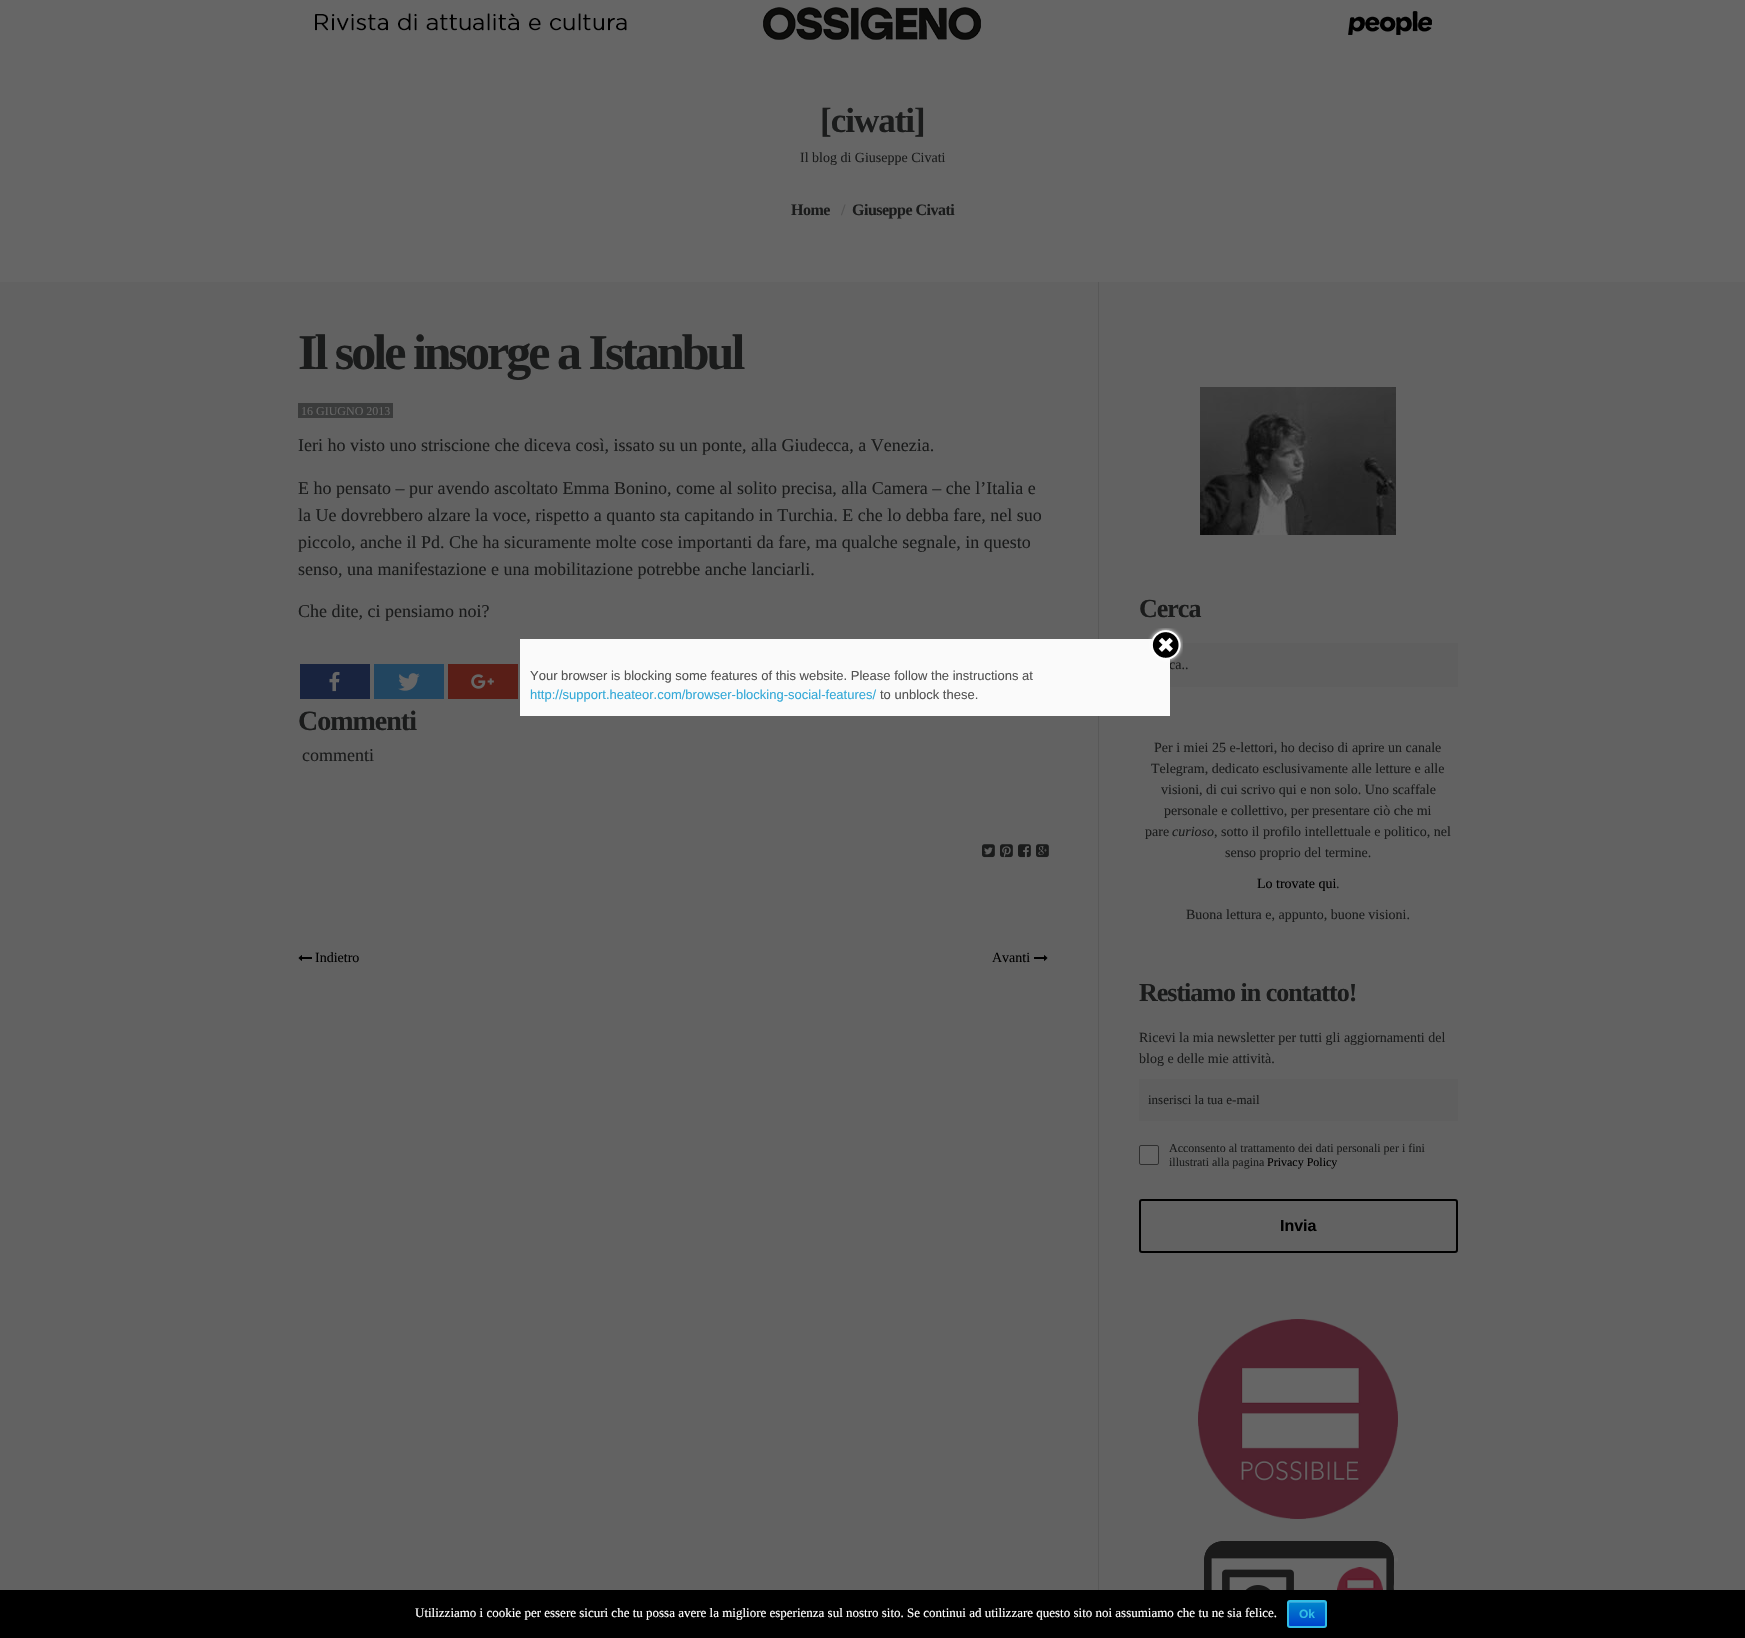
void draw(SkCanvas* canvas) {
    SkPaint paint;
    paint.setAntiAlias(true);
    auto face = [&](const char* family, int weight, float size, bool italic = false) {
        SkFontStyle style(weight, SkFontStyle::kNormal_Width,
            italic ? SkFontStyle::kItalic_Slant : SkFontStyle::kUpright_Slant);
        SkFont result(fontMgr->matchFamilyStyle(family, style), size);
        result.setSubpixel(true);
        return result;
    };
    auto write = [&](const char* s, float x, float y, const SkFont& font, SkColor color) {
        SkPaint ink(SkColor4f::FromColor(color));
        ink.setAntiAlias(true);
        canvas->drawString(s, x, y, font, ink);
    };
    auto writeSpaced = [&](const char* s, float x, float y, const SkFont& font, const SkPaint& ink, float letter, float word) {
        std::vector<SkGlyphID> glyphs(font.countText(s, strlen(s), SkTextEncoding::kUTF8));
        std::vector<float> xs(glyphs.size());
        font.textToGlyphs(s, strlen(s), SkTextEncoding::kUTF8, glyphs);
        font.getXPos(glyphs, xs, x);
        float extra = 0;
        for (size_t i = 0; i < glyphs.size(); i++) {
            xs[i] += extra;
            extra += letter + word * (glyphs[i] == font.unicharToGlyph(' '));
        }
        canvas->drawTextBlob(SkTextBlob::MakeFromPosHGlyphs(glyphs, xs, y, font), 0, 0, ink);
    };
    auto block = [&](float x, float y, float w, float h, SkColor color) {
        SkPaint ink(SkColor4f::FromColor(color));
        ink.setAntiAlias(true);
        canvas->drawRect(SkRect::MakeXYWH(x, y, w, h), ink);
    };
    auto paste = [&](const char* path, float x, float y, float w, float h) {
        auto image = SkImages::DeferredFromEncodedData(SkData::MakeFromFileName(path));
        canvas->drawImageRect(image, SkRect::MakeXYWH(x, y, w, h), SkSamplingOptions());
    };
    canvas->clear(SkColorSetRGB(98, 98, 98));
    block(0, 0, 1745, 282, SkColorSetRGB(102, 102, 102));
    paste("pic1.png", 315, 7, 1117, 33);
    auto kFont1 = face("Liberation Serif", 700, 35);
    paint.setColor(SkColorSetRGB(26, 27, 27));
    writeSpaced("[ciwati]", 820, 132, kFont1, paint, -1, 0);
    auto kFont2 = face("Liberation Serif", 400, 14);
    write("Il blog di Giuseppe Civati", 800, 162, kFont2, SkColorSetRGB(26, 27, 27));
    auto kFont3 = face("Liberation Serif", 700, 16);
    writeSpaced("Home", 791, 215, kFont3, paint, -0.5f, 0);
    write("/", 841, 215, kFont3, SkColorSetRGB(83, 83, 83));
    writeSpaced("Giuseppe Civati", 852, 215, kFont3, paint, -0.5f, 0);
    auto kFont4 = face("Liberation Serif", 700, 50);
    writeSpaced("Il sole insorge a Istanbul", 298, 369, kFont4, paint, -3, 0);
    block(298, 403, 95, 15, SkColorSetRGB(58, 59, 59));
    auto kFont5 = face("Liberation Serif", 400, 12);
    write("16 GIUGNO 2013", 301, 415, kFont5, SkColorSetRGB(102, 102, 102));
    auto kFont6 = face("Liberation Serif", 400, 18);
    write("Ieri ho visto uno striscione che diceva così, issato su un ponte, alla Giudecca, a Venezia.", 298, 451, kFont6, SkColorSetRGB(26, 27, 27));
    write("E ho pensato – pur avendo ascoltato Emma Bonino, come al solito precisa, alla Camera – che l’Italia e", 298, 494, kFont6, SkColorSetRGB(26, 27, 27));
    write("la Ue dovrebbero alzare la voce, rispetto a quanto sta capitando in Turchia. E che lo debba fare, nel suo", 298, 521, kFont6, SkColorSetRGB(26, 27, 27));
    write("piccolo, anche il Pd. Che ha sicuramente molte cose importanti da fare, ma qualche segnale, in questo", 298, 548, kFont6, SkColorSetRGB(26, 27, 27));
    write("senso, una manifestazione e una mobilitazione potrebbe anche lanciarli.", 298, 575, kFont6, SkColorSetRGB(26, 27, 27));
    write("Che dite, ci pensiamo noi?", 298, 617, kFont6, SkColorSetRGB(26, 27, 27));
    block(300, 664, 70, 35, SkColorSetRGB(24, 35, 62));
    paste("pic2.png", 329, 671, 11, 21);
    block(374, 664, 70, 35, SkColorSetRGB(34, 69, 95));
    paste("pic3.png", 398, 673, 22, 18);
    block(448, 664, 70, 35, SkColorSetRGB(88, 30, 23));
    paste("pic4.png", 471, 674, 23, 15);
    auto kFont7 = face("Liberation Serif", 700, 28);
    writeSpaced("Commenti", 298, 730, kFont7, paint, -1, 0);
    write("commenti", 302, 761, kFont6, SkColorSetRGB(26, 27, 27));
    paste("pic5.png", 982, 844, 13, 14);
    paste("pic6.png", 1000, 844, 13, 14);
    paste("pic7.png", 1018, 844, 13, 14);
    paste("pic8.png", 1036, 844, 13, 14);
    paste("pic9.png", 298, 955, 14, 6);
    write("Indietro", 315, 962, kFont2, SK_ColorBLACK);
    write("Avanti", 992, 962, kFont2, SK_ColorBLACK);
    paste("pic10.png", 1034, 955, 14, 6);
    block(1098, 282, 1, 1308, SkColorSetRGB(88, 88, 88));
    paste("pic11.png", 1200, 387, 196, 148);
    auto kFont8 = face("Liberation Serif", 700, 26);
    writeSpaced("Cerca", 1139, 617, kFont8, paint, -1, 0);
    block(1170, 643, 288, 44, SkColorSetRGB(95, 95, 95));
    write("ca..", 1169, 669, kFont2, SkColorSetRGB(26, 27, 27));
    write("Per i miei 25 e-lettori, ho deciso di aprire un canale", 1154, 752, kFont2, SkColorSetRGB(26, 27, 27));
    write("Telegram, dedicato esclusivamente alle letture e alle", 1151, 773, kFont2, SkColorSetRGB(26, 27, 27));
    write("visioni, di cui scrivo qui e non solo. Uno scaffale", 1161, 794, kFont2, SkColorSetRGB(26, 27, 27));
    write("personale e collettivo, per presentare ciò che mi", 1164, 815, kFont2, SkColorSetRGB(26, 27, 27));
    write("pare", 1145, 836, kFont2, SkColorSetRGB(26, 27, 27));
    auto kFont9 = face("Liberation Serif", 400, 14, true);
    write("curioso", 1172, 836, kFont9, SkColorSetRGB(26, 27, 27));
    write(", sotto il profilo intellettuale e politico, nel", 1214, 836, kFont2, SkColorSetRGB(26, 27, 27));
    write("senso proprio del termine.", 1225, 857, kFont2, SkColorSetRGB(26, 27, 27));
    write("Lo trovate qui", 1257, 888, kFont2, SK_ColorBLACK);
    write(".", 1336, 888, kFont2, SkColorSetRGB(26, 27, 27));
    write("Buona lettura e, appunto, buone visioni.", 1186, 919, kFont2, SkColorSetRGB(26, 27, 27));
    writeSpaced("Restiamo in contatto!", 1139, 1001, kFont8, paint, -1, 0);
    write("Ricevi la mia newsletter per tutti gli aggiornamenti del", 1139, 1042, kFont2, SkColorSetRGB(26, 27, 27));
    write("blog e delle mie attività.", 1139, 1063, kFont2, SkColorSetRGB(26, 27, 27));
    block(1139, 1079, 319, 42, SkColorSetRGB(95, 95, 95));
    auto kFont10 = face("Liberation Serif", 400, 13);
    write("inserisci la tua e-mail", 1148, 1104, kFont10, SkColorSetRGB(26, 27, 27));
    paint.setColor(SkColorSetRGB(102, 102, 102));
    canvas->drawRoundRect(SkRect::MakeXYWH(1139.5f, 1145.5f, 19, 19), 1.5f, 1.5f, paint);
    paint.setStyle(SkPaint::kStroke_Style);
    paint.setStrokeWidth(1);
    paint.setColor(SkColorSetRGB(47, 47, 47));
    canvas->drawRoundRect(SkRect::MakeXYWH(1139.5f, 1145.5f, 19, 19), 1.5f, 1.5f, paint);
    write("Acconsento al trattamento dei dati personali per i fini", 1169, 1152, kFont5, SkColorSetRGB(26, 27, 27));
    write("illustrati alla pagina", 1169, 1166, kFont5, SkColorSetRGB(26, 27, 27));
    write("Privacy Policy", 1267, 1166, kFont5, SK_ColorBLACK);
    paint.setStrokeWidth(2);
    paint.setColor(SK_ColorBLACK);
    canvas->drawRoundRect(SkRect::MakeXYWH(1140, 1200, 317, 52), 2, 2, paint);
    auto kFont11 = face("Liberation Sans", 700, 16);
    write("Invia", 1280, 1231, kFont11, SK_ColorBLACK);
    paste("pic12.png", 1198, 1319, 200, 200);
    paste("pic13.png", 1204, 1541, 194, 49);
    block(520, 639, 650, 77, SkColorSetRGB(250, 250, 250));
    paste("pic14.png", 1148, 628, 35, 34);
    auto kFont12 = face("Liberation Sans", 400, 13);
    write("Your browser is blocking some features of this website. Please follow the instructions at", 530, 680, kFont12, SkColorSetRGB(83, 83, 83));
    write("http://support.heateor.com/browser-blocking-social-features/", 530, 699, kFont12, SkColorSetRGB(51, 169, 216));
    write("to unblock these.", 880, 699, kFont12, SkColorSetRGB(83, 83, 83));
    block(0, 1590, 1745, 48, SK_ColorBLACK);
    write("Utilizziamo i cookie per essere sicuri che tu possa avere la migliore esperienza sul nostro sito. Se continui ad utilizzare questo sito noi assumiamo che tu ne sia felice.", 415, 1617, kFont10, SK_ColorWHITE);
    canvas->save();
    canvas->clipPath(SkPathBuilder().moveTo(1290, 1600).lineTo(1324, 1600).cubicTo(1325.5f, 1600, 1327, 1601.5f, 1327, 1603).lineTo(1327, 1625).cubicTo(1327, 1626.5f, 1325.5f, 1628, 1324, 1628).lineTo(1290, 1628).cubicTo(1288.5f, 1628, 1287, 1626.5f, 1287, 1625).lineTo(1287, 1603).cubicTo(1287, 1601.5f, 1288.5f, 1600, 1290, 1600).close().detach(), true);
    paint.setStyle(SkPaint::kFill_Style);
    {
        const SkColor colors[] = {SkColorSetRGB(0, 136, 204), SkColorSetRGB(0, 68, 204)};
        const float stops[] = {0, 1};
        const SkPoint ends[] = {{1307, 1602}, {1307, 1626}};
        paint.setShader(SkGradientShader::MakeLinear(ends, colors, stops, 2, SkTileMode::kClamp));
        paint.setAlpha(255);
    }
    canvas->drawRect(SkRect::MakeXYWH(1287, 1602, 40, 24), paint);
    canvas->restore();
    paint.setShader(nullptr);
    paint.setColor(SkColorSetRGB(51, 159, 214));
    canvas->drawPath(SkPathBuilder(SkPathFillType::kEvenOdd).moveTo(1290, 1603).lineTo(1320.5f, 1603).cubicTo(1325.5f, 1602.5f, 1325, 1603, 1325, 1608).cubicTo(1325, 1601, 1326.5f, 1602, 1318.5f, 1602).lineTo(1289.5f, 1602).cubicTo(1289, 1602.5f, 1289, 1603.5f, 1289, 1604).close().moveTo(1325, 1622).lineTo(1325, 1625.5f).close().moveTo(1289, 1625.5f).lineTo(1289, 1624.5f).close().detach(), paint);
    paint.setStyle(SkPaint::kStroke_Style);
    paint.setColor(SkColorSetRGB(50, 190, 230));
    canvas->drawRoundRect(SkRect::MakeXYWH(1288, 1601, 38, 26), 2, 2, paint);
    auto kFont13 = face("Liberation Sans", 700, 12);
    write("Ok", 1299, 1618, kFont13, SkColorSetRGB(50, 190, 230));
}
